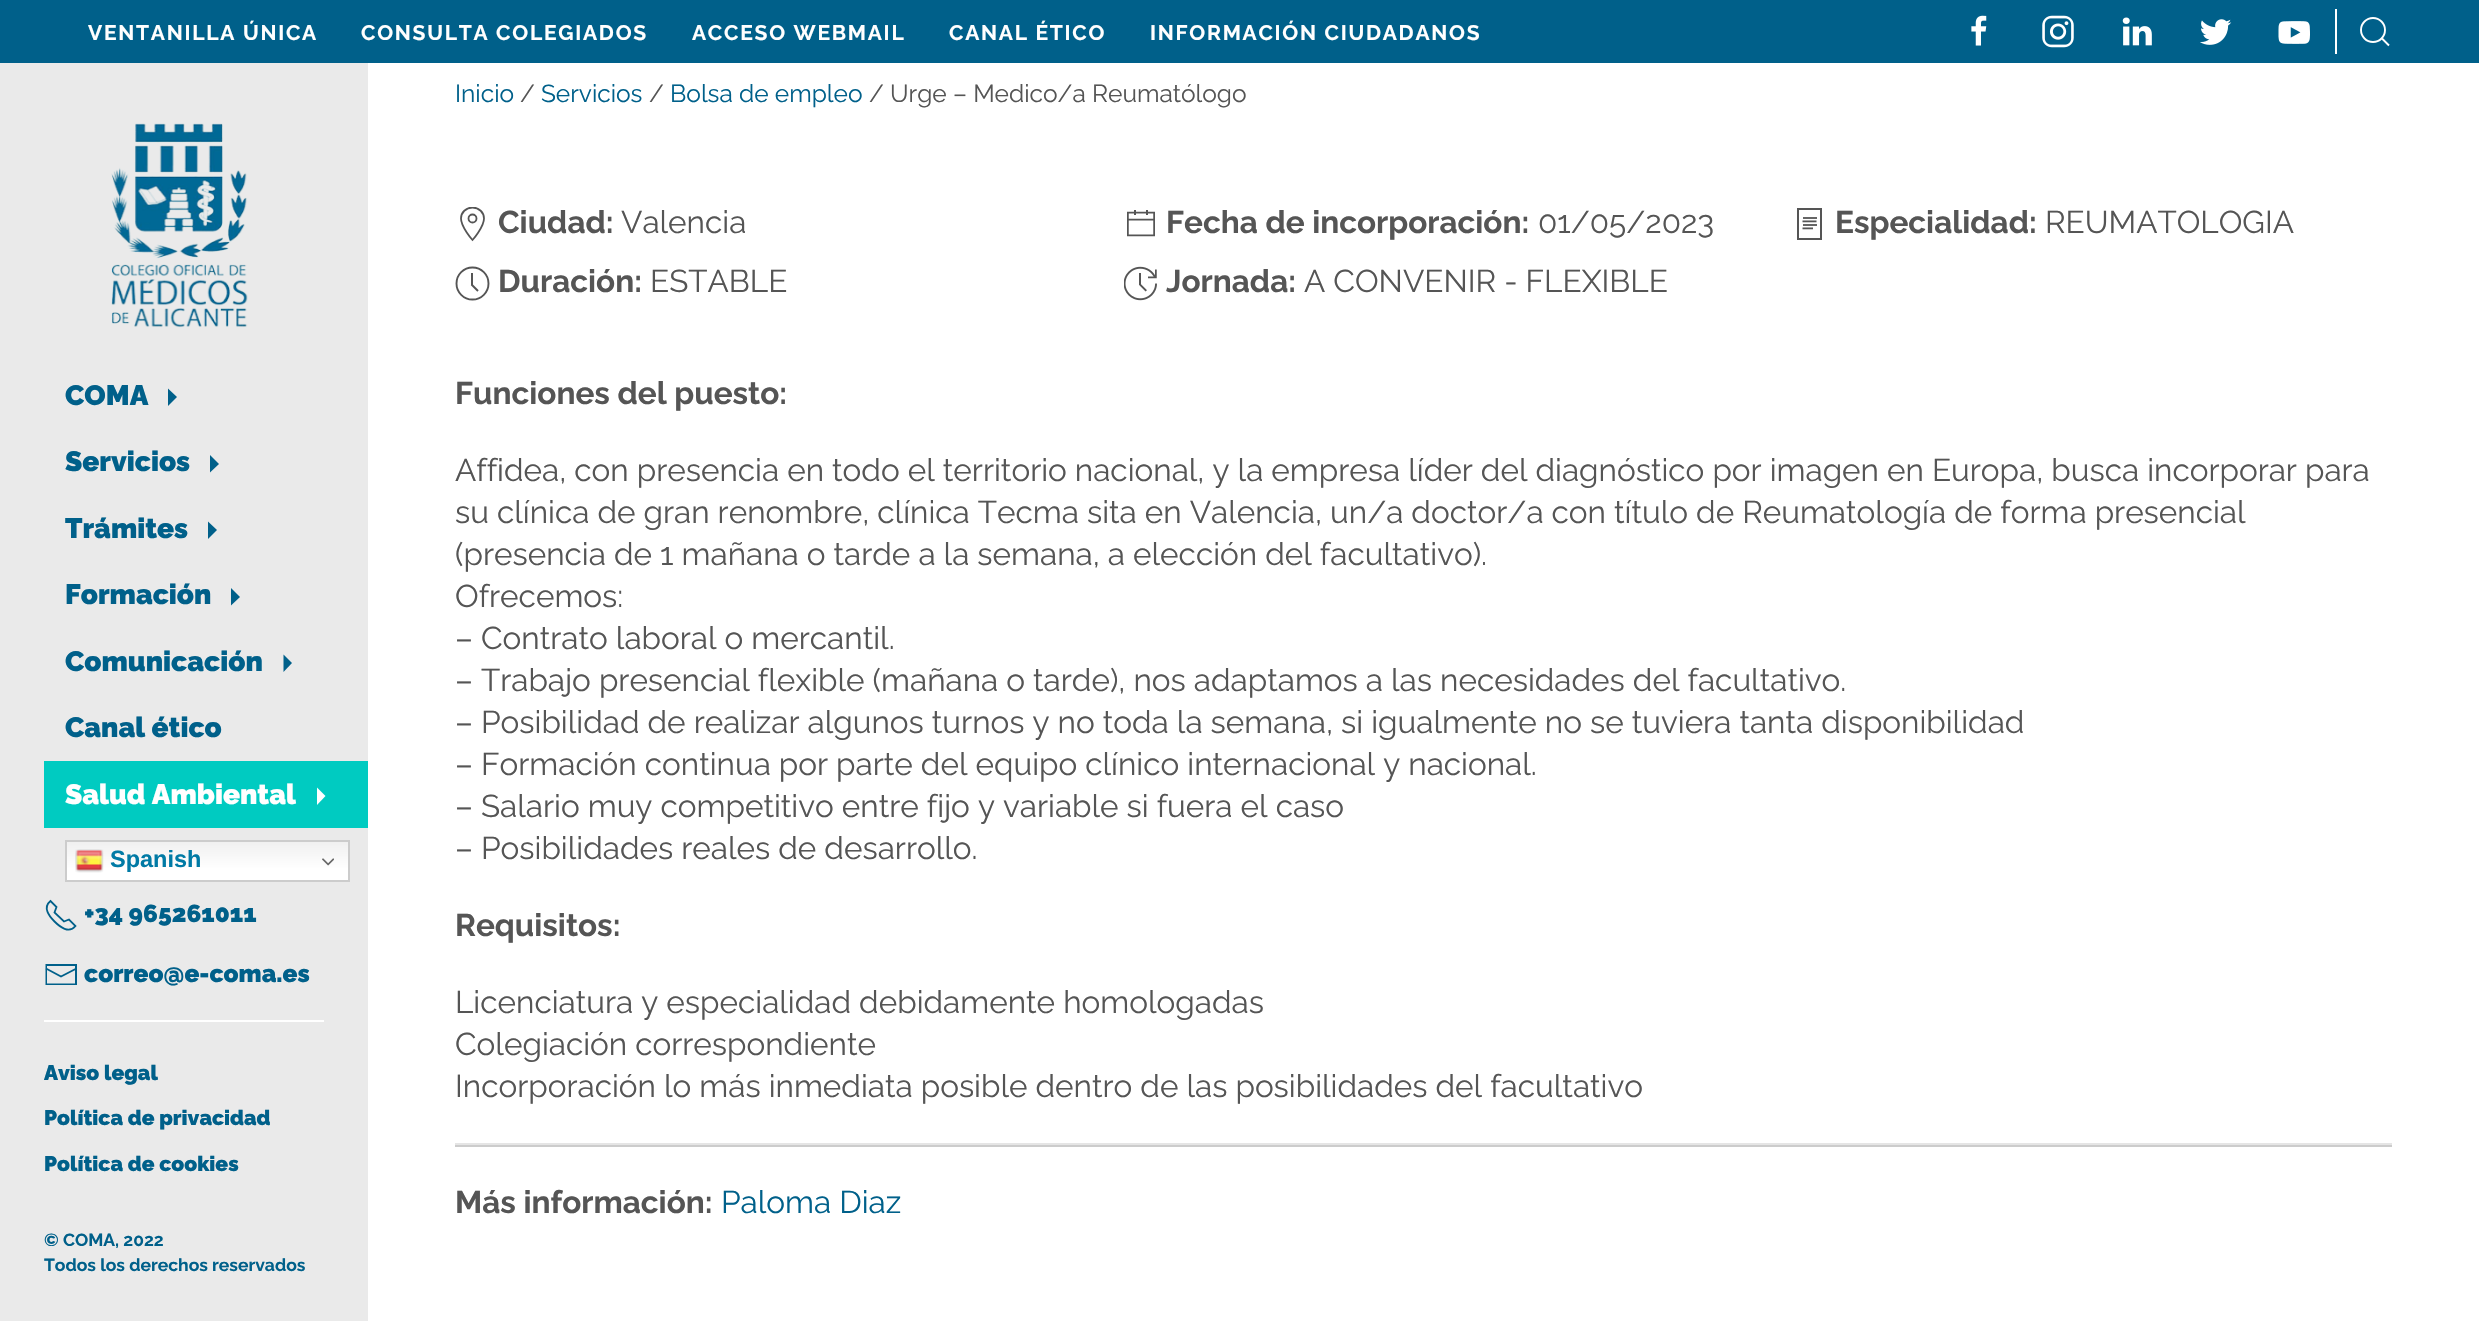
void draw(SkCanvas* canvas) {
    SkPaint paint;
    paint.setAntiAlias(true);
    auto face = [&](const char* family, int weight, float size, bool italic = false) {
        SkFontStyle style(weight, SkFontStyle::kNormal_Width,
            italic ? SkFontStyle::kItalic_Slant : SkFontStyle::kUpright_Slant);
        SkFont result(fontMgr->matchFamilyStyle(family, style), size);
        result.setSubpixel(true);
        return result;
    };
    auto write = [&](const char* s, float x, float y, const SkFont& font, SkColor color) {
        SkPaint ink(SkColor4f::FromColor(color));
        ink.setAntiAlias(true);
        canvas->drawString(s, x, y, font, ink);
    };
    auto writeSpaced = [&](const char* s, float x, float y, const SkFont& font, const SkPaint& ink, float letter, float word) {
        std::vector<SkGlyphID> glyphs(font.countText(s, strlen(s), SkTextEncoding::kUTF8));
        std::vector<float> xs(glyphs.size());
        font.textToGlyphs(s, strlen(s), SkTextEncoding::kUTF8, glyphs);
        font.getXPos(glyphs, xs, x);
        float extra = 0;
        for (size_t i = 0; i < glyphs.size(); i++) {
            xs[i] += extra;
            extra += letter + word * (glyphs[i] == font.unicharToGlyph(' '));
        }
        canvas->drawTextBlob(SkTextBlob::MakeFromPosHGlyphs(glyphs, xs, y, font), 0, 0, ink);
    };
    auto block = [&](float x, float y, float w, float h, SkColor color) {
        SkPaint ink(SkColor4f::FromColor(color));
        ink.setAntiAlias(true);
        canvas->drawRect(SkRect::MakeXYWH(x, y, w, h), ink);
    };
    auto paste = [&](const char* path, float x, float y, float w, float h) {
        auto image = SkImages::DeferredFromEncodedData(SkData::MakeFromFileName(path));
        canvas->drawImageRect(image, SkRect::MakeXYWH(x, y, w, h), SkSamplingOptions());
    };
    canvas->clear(SK_ColorWHITE);
    block(0, 0, 2479, 63, SkColorSetRGB(0, 96, 138));
    auto kFont1 = face("Raleway", 700, 21);
    paint.setColor(SK_ColorWHITE);
    writeSpaced("VENTANILLA ÚNICA", 88, 40, kFont1, paint, 1.75f, 0);
    writeSpaced("CONSULTA COLEGIADOS", 361, 40, kFont1, paint, 1.75f, 0);
    writeSpaced("ACCESO WEBMAIL", 692, 40, kFont1, paint, 1.75f, 0);
    writeSpaced("CANAL ÉTICO", 949, 40, kFont1, paint, 1.75f, 0);
    writeSpaced("INFORMACIÓN CIUDADANOS", 1150, 40, kFont1, paint, 1.75f, 0);
    paste("pic1.png", 1971, 15, 16, 31);
    paste("pic2.png", 2042, 15, 32, 33);
    paste("pic3.png", 2122, 17, 30, 29);
    paste("pic4.png", 2200, 19, 32, 26);
    paste("pic5.png", 2278, 21, 32, 23);
    block(2335, 9, 2, 45, SK_ColorWHITE);
    paint.setStyle(SkPaint::kStroke_Style);
    paint.setStrokeWidth(1.9f);
    canvas->drawCircle(2373, 30, 12, paint);
    canvas->drawPath(SkPathBuilder().moveTo(2382, 38.5f).lineTo(2389, 45.5f).close().detach(), paint);
    block(0, 63, 368, 1258, SkColorSetRGB(234, 234, 234));
    paste("pic6.png", 111, 123, 137, 205);
    auto kFont2 = face("Raleway", 900, 28);
    write("COMA", 65, 405, kFont2, SkColorSetRGB(0, 96, 138));
    paint.setStyle(SkPaint::kFill_Style);
    paint.setColor(SkColorSetRGB(0, 96, 138));
    canvas->drawPath(SkPathBuilder().moveTo(168, 388.5f).lineTo(177, 397).lineTo(168, 406).close().detach(), paint);
    write("Servicios", 65, 471, kFont2, SkColorSetRGB(0, 96, 138));
    canvas->drawPath(SkPathBuilder().moveTo(210, 455).lineTo(219, 464).lineTo(210, 472.5f).close().detach(), paint);
    write("Trámites", 65, 538, kFont2, SkColorSetRGB(0, 96, 138));
    canvas->drawPath(SkPathBuilder().moveTo(208, 521.5f).lineTo(217, 530).lineTo(208, 539).close().detach(), paint);
    write("Formación", 65, 604, kFont2, SkColorSetRGB(0, 96, 138));
    canvas->drawPath(SkPathBuilder().moveTo(231, 588).lineTo(240, 597).lineTo(231, 605.5f).close().detach(), paint);
    write("Comunicación", 65, 671, kFont2, SkColorSetRGB(0, 96, 138));
    canvas->drawPath(SkPathBuilder().moveTo(283.5f, 654.5f).lineTo(292, 663).lineTo(283.5f, 672).close().detach(), paint);
    write("Canal ético", 65, 737, kFont2, SkColorSetRGB(0, 96, 138));
    block(44, 761, 324, 67, SkColorSetRGB(0, 203, 193));
    write("Salud Ambiental", 65, 804, kFont2, SK_ColorWHITE);
    paint.setColor(SK_ColorWHITE);
    canvas->drawPath(SkPathBuilder().moveTo(317, 787.5f).lineTo(325.5f, 796).lineTo(317, 805).close().detach(), paint);
    {
        const SkColor colors[] = {SkColorSetRGB(239, 239, 239), SK_ColorWHITE};
        const float stops[] = {0, 0.7f};
        const SkPoint ends[] = {{207, 840}, {207, 882}};
        paint.setShader(SkGradientShader::MakeLinear(ends, colors, stops, 2, SkTileMode::kClamp));
        paint.setAlpha(255);
    }
    canvas->drawRect(SkRect::MakeXYWH(67, 842, 281, 38), paint);
    paint.setStyle(SkPaint::kStroke_Style);
    paint.setStrokeWidth(2);
    paint.setShader(nullptr);
    paint.setColor(SkColorSetRGB(204, 204, 204));
    canvas->drawRect(SkRect::MakeXYWH(66, 841, 283, 40), paint);
    paste("pic7.png", 75, 849, 29, 24);
    auto kFont3 = face("Liberation Sans", 700, 23.5f);
    write("Spanish", 110, 867, kFont3, SkColorSetRGB(0, 122, 165));
    paste("pic8.png", 322, 858, 12, 8);
    paint.setStrokeWidth(1.8f);
    paint.setColor(SkColorSetRGB(0, 96, 138));
    canvas->drawPath(SkPathBuilder().moveTo(54.5f, 921.5f).cubicTo(60, 927, 69, 934, 75.5f, 926).lineTo(69, 919.5f).lineTo(64, 921.5f).lineTo(54.5f, 912.5f).lineTo(56.5f, 907).lineTo(50.5f, 901).cubicTo(42.5f, 907.5f, 49, 916, 54.5f, 921.5f).detach(), paint);
    auto kFont4 = face("Raleway", 900, 24.5f);
    write("+34 965261011", 84, 922, kFont4, SkColorSetRGB(0, 96, 138));
    canvas->drawPath(SkPathBuilder().moveTo(46, 968.5f).lineTo(61, 976.5f).lineTo(76.5f, 968.5f).detach(), paint);
    paint.setStyle(SkPaint::kFill_Style);
    canvas->drawPath(SkPathBuilder().moveTo(45.5f, 964).lineTo(45.5f, 985).lineTo(77, 985).lineTo(77, 964).close().moveTo(75, 983.5f).lineTo(47, 983.5f).lineTo(47, 966).lineTo(75, 966).close().detach(), paint);
    write("correo@e-coma.es", 84, 982, kFont4, SkColorSetRGB(0, 96, 138));
    block(44, 1020, 280, 2, SK_ColorWHITE);
    auto kFont5 = face("Raleway", 900, 21);
    write("Aviso legal", 44, 1080, kFont5, SkColorSetRGB(0, 96, 138));
    write("Política de privacidad", 44, 1125, kFont5, SkColorSetRGB(0, 96, 138));
    write("Política de cookies", 44, 1171, kFont5, SkColorSetRGB(0, 96, 138));
    auto kFont6 = face("Raleway", 700, 17.5f);
    write("© COMA, 2022", 44, 1246, kFont6, SkColorSetRGB(0, 96, 138));
    write("Todos los derechos reservados", 44, 1271, kFont6, SkColorSetRGB(0, 96, 138));
    auto kFont7 = face("Raleway", 400, 24.5f);
    write("Inicio", 455, 102, kFont7, SkColorSetRGB(0, 96, 138));
    write("/", 520, 102, kFont7, SkColorSetRGB(85, 85, 85));
    write("Servicios", 541, 102, kFont7, SkColorSetRGB(0, 96, 138));
    write("/", 649, 102, kFont7, SkColorSetRGB(85, 85, 85));
    write("Bolsa de empleo", 670, 102, kFont7, SkColorSetRGB(0, 96, 138));
    write("/ Urge – Medico/a Reumatólogo", 869, 102, kFont7, SkColorSetRGB(85, 85, 85));
    canvas->save();
    canvas->clipRect(SkRect::MakeXYWH(455, 207, 35, 35));
    paint.setStyle(SkPaint::kStroke_Style);
    paint.setColor(SkColorSetRGB(85, 85, 85));
    canvas->drawPath(SkPathBuilder().moveTo(472.5f, 207.5f).cubicTo(466, 207.5f, 461, 212.5f, 461, 218.5f).cubicTo(461, 227, 472.5f, 240, 472.5f, 240).cubicTo(472.5f, 240, 484, 227, 484, 218.5f).cubicTo(484, 212.5f, 479, 207.5f, 472.5f, 207.5f).close().detach(), paint);
    canvas->restore();
    canvas->drawCircle(472.5f, 218.5f, 4, paint);
    auto kFont8 = face("Raleway", 700, 31.5f);
    write("Ciudad:", 498, 233, kFont8, SkColorSetRGB(85, 85, 85));
    auto kFont9 = face("Raleway", 400, 31.5f);
    write("Valencia", 621, 233, kFont9, SkColorSetRGB(85, 85, 85));
    paste("pic9.png", 1127, 210, 28, 27);
    write("Fecha de incorporación:", 1166, 233, kFont8, SkColorSetRGB(85, 85, 85));
    write("01/05/2023", 1538, 233, kFont9, SkColorSetRGB(85, 85, 85));
    paste("pic10.png", 1797, 208, 25, 32);
    write("Especialidad:", 1835, 233, kFont8, SkColorSetRGB(85, 85, 85));
    write("REUMATOLOGIA", 2045, 233, kFont9, SkColorSetRGB(85, 85, 85));
    paint.setStrokeWidth(1.9f);
    canvas->drawCircle(472.5f, 283.5f, 16, paint);
    block(471, 273, 2, 12, SkColorSetRGB(85, 85, 85));
    canvas->drawPath(SkPathBuilder().moveTo(478, 291).lineTo(471.5f, 284.5f).detach(), paint);
    write("Duración:", 498, 292, kFont8, SkColorSetRGB(85, 85, 85));
    write("ESTABLE", 650, 292, kFont9, SkColorSetRGB(85, 85, 85));
    paste("pic11.png", 1124, 266, 33, 35);
    write("Jornada:", 1166, 292, kFont8, SkColorSetRGB(85, 85, 85));
    write("A CONVENIR - FLEXIBLE", 1304, 292, kFont9, SkColorSetRGB(85, 85, 85));
    write("Funciones del puesto:", 455, 404, kFont8, SkColorSetRGB(85, 85, 85));
    write("Affidea, con presencia en todo el territorio nacional, y la empresa líder del diagnóstico por imagen en Europa, busca incorporar para", 455, 481, kFont9, SkColorSetRGB(85, 85, 85));
    write("su clínica de gran renombre, clínica Tecma sita en Valencia, un/a doctor/a con título de Reumatología de forma presencial", 455, 523, kFont9, SkColorSetRGB(85, 85, 85));
    write("(presencia de 1 mañana o tarde a la semana, a elección del facultativo).", 455, 565, kFont9, SkColorSetRGB(85, 85, 85));
    write("Ofrecemos:", 455, 607, kFont9, SkColorSetRGB(85, 85, 85));
    write("– Contrato laboral o mercantil.", 455, 649, kFont9, SkColorSetRGB(85, 85, 85));
    write("– Trabajo presencial flexible (mañana o tarde), nos adaptamos a las necesidades del facultativo.", 455, 691, kFont9, SkColorSetRGB(85, 85, 85));
    write("– Posibilidad de realizar algunos turnos y no toda la semana, si igualmente no se tuviera tanta disponibilidad", 455, 733, kFont9, SkColorSetRGB(85, 85, 85));
    write("– Formación continua por parte del equipo clínico internacional y nacional.", 455, 775, kFont9, SkColorSetRGB(85, 85, 85));
    write("– Salario muy competitivo entre fijo y variable si fuera el caso", 455, 817, kFont9, SkColorSetRGB(85, 85, 85));
    write("– Posibilidades reales de desarrollo.", 455, 859, kFont9, SkColorSetRGB(85, 85, 85));
    write("Requisitos:", 455, 936, kFont8, SkColorSetRGB(85, 85, 85));
    write("Licenciatura y especialidad debidamente homologadas", 455, 1013, kFont9, SkColorSetRGB(85, 85, 85));
    write("Colegiación correspondiente", 455, 1055, kFont9, SkColorSetRGB(85, 85, 85));
    write("Incorporación lo más inmediata posible dentro de las posibilidades del facultativo", 455, 1097, kFont9, SkColorSetRGB(85, 85, 85));
    block(455, 1145, 1937, 2, SkColorSetRGB(204, 204, 204));
    block(455, 1143, 1937, 2, SkColorSetRGB(229, 229, 229));
    write("Más información:", 455, 1213, kFont8, SkColorSetRGB(85, 85, 85));
    write("Paloma Diaz", 721, 1213, kFont9, SkColorSetRGB(0, 96, 138));
}
